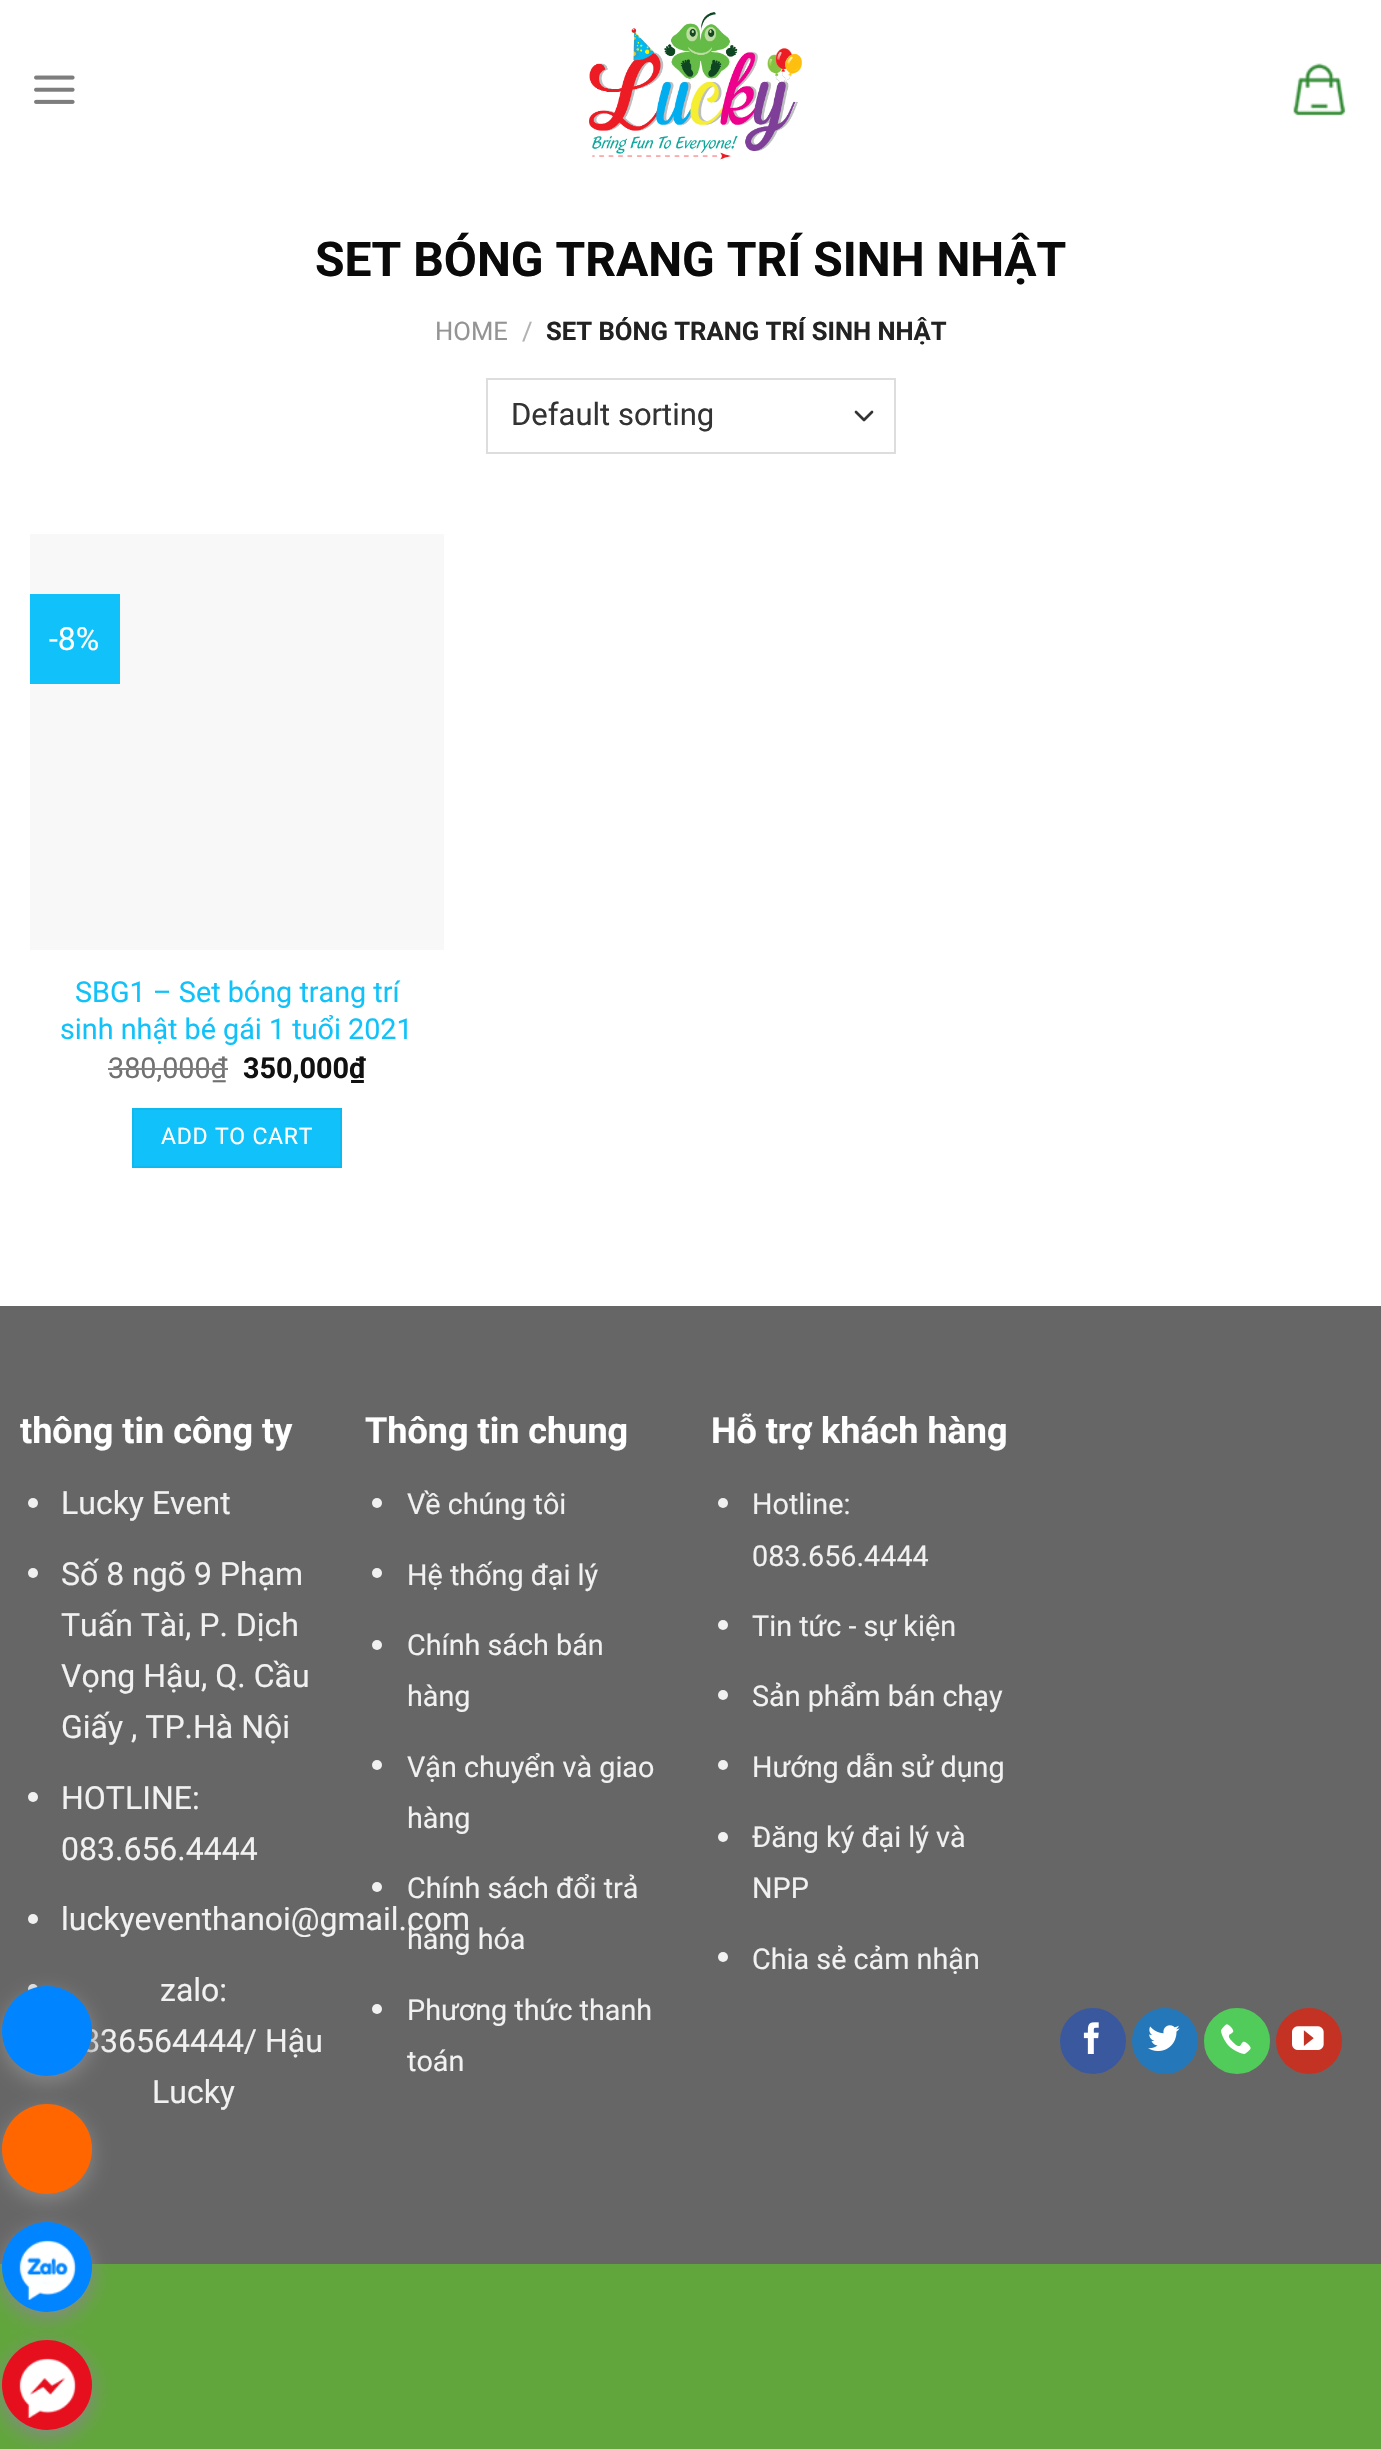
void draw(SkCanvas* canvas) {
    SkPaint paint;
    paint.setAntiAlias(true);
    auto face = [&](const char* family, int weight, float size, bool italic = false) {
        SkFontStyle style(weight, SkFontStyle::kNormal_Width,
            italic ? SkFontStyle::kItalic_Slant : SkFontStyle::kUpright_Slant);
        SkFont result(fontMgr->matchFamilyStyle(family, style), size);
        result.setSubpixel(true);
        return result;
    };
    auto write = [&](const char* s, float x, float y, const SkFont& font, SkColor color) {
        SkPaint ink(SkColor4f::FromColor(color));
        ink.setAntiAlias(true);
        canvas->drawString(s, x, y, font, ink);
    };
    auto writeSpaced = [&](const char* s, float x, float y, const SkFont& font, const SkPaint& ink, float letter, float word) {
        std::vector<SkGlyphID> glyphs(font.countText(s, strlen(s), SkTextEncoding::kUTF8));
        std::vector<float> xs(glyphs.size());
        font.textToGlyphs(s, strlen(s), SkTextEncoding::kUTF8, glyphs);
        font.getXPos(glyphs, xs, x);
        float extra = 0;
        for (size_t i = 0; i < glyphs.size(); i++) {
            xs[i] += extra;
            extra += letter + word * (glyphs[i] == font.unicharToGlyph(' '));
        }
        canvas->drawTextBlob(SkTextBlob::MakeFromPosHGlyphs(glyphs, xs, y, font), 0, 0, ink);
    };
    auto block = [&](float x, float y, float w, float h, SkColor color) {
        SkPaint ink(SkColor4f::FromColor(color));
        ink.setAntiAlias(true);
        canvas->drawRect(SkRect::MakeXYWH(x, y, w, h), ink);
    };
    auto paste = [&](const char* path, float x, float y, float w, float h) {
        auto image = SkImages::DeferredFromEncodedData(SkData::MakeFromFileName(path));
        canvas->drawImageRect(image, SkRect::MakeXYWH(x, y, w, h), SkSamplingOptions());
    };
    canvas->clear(SkColorSetRGB(97, 166, 60));
    block(0, 0, 1381, 1306, SK_ColorWHITE);
    paste("pic1.png", 34, 75, 41, 29);
    paste("pic2.png", 589, 12, 213, 148);
    paste("pic3.png", 1293, 63, 53, 53);
    auto kFont1 = face("Roboto", 700, 48);
    write("SET BÓNG TRANG TRÍ SINH NHẬT", 315, 276, kFont1, SkColorSetRGB(10, 10, 10));
    auto kFont2 = face("Roboto", 400, 25.6f);
    write("HOME", 435, 340, kFont2, SkColorSetRGB(148, 148, 148));
    write("/", 522, 340, kFont2, SkColorSetRGB(178, 178, 178));
    auto kFont3 = face("Roboto", 700, 25.6f);
    write("SET BÓNG TRANG TRÍ SINH NHẬT", 546, 340, kFont3, SkColorSetRGB(34, 34, 34));
    paint.setStyle(SkPaint::kStroke_Style);
    paint.setStrokeWidth(2.7f);
    paint.setStrokeCap(SkPaint::kRound_Cap);
    paint.setStrokeJoin(SkPaint::kRound_Join);
    paint.setColor(SkColorSetRGB(51, 51, 51));
    canvas->drawPath(SkPathBuilder().moveTo(856, 412).lineTo(864, 420).lineTo(872, 412).detach(), paint);
    paint.setStrokeWidth(2);
    paint.setStrokeCap(SkPaint::kButt_Cap);
    paint.setStrokeJoin(SkPaint::kMiter_Join);
    paint.setColor(SkColorSetRGB(221, 221, 221));
    canvas->drawRect(SkRect::MakeXYWH(487, 379, 408, 74), paint);
    auto kFont4 = face("Roboto", 400, 31);
    write("Default sorting", 511, 425, kFont4, SkColorSetRGB(51, 51, 51));
    block(30, 534, 414, 416, SkColorSetRGB(248, 248, 248));
    block(30, 594, 90, 90, SkColorSetRGB(16, 194, 249));
    auto kFont5 = face("Roboto", 400, 32);
    write("-8%", 49, 650, kFont5, SK_ColorWHITE);
    auto kFont6 = face("Roboto", 400, 28.75f);
    write("SBG1 – Set bóng trang trí", 75, 1002, kFont6, SkColorSetRGB(16, 194, 249));
    write("sinh nhật bé gái 1 tuổi 2021", 60, 1039, kFont6, SkColorSetRGB(16, 194, 249));
    write("380,000₫", 108, 1078, kFont6, SkColorSetRGB(112, 112, 112));
    block(108, 1068, 120, 2, SkColorSetRGB(131, 131, 131));
    auto kFont7 = face("Roboto", 700, 28.75f);
    write("350,000₫", 243, 1078, kFont7, SkColorSetRGB(17, 17, 17));
    paint.setStyle(SkPaint::kFill_Style);
    paint.setColor(SkColorSetRGB(16, 194, 249));
    canvas->drawRect(SkRect::MakeXYWH(133, 1109, 208, 58), paint);
    paint.setStyle(SkPaint::kStroke_Style);
    paint.setColor(SkColorSetRGB(15, 184, 237));
    canvas->drawRect(SkRect::MakeXYWH(133, 1109, 208, 58), paint);
    auto kFont8 = face("Roboto", 400, 23);
    paint.setStyle(SkPaint::kFill_Style);
    paint.setColor(SK_ColorWHITE);
    writeSpaced("ADD TO CART", 161, 1144, kFont8, paint, 0.75f, 0);
    block(0, 1306, 1381, 958, SkColorSetRGB(102, 102, 102));
    auto kFont9 = face("Roboto", 700, 36);
    write("thông tin công ty", 20, 1443, kFont9, SK_ColorWHITE);
    paint.setColor(SkColorSetRGB(241, 241, 241));
    canvas->drawCircle(33, 1503, 5, paint);
    write("Lucky Event", 61, 1514, kFont5, SkColorSetRGB(241, 241, 241));
    canvas->drawCircle(33, 1573, 5, paint);
    write("Số 8 ngõ 9 Phạm", 61, 1585, kFont5, SkColorSetRGB(241, 241, 241));
    write("Tuấn Tài, P. Dịch", 61, 1636, kFont5, SkColorSetRGB(241, 241, 241));
    write("Vọng Hậu, Q. Cầu", 61, 1687, kFont5, SkColorSetRGB(241, 241, 241));
    write("Giấy , TP.Hà Nội", 61, 1738, kFont5, SkColorSetRGB(241, 241, 241));
    canvas->drawCircle(33, 1797, 5, paint);
    write("HOTLINE:", 61, 1809, kFont5, SkColorSetRGB(241, 241, 241));
    write("083.656.4444", 61, 1860, kFont5, SkColorSetRGB(241, 241, 241));
    canvas->drawCircle(33, 1919, 5, paint);
    write("luckyeventhanoi@gmail.com", 61, 1930, kFont5, SkColorSetRGB(241, 241, 241));
    canvas->drawCircle(33, 1989, 5, paint);
    write("zalo:", 160, 2001, kFont5, SkColorSetRGB(241, 241, 241));
    write("836564444/ Hậu", 82, 2052, kFont5, SkColorSetRGB(241, 241, 241));
    write("Lucky", 152, 2103, kFont5, SkColorSetRGB(241, 241, 241));
    write("Thông tin chung", 365, 1443, kFont9, SK_ColorWHITE);
    canvas->drawCircle(377, 1503, 5, paint);
    write("Về chúng tôi", 407, 1514, kFont6, SkColorSetRGB(241, 241, 241));
    canvas->drawCircle(377, 1573, 5, paint);
    write("Hệ thống đại lý", 407, 1585, kFont6, SkColorSetRGB(241, 241, 241));
    canvas->drawCircle(377, 1645, 5, paint);
    write("Chính sách bán", 407, 1655, kFont6, SkColorSetRGB(241, 241, 241));
    write("hàng", 407, 1706, kFont6, SkColorSetRGB(241, 241, 241));
    canvas->drawCircle(377, 1765, 5, paint);
    write("Vận chuyển và giao", 407, 1777, kFont6, SkColorSetRGB(241, 241, 241));
    write("hàng", 407, 1828, kFont6, SkColorSetRGB(241, 241, 241));
    canvas->drawCircle(377, 1887, 5, paint);
    write("Chính sách đổi trả", 407, 1898, kFont6, SkColorSetRGB(241, 241, 241));
    write("hàng hóa", 407, 1949, kFont6, SkColorSetRGB(241, 241, 241));
    canvas->drawCircle(377, 2009, 5, paint);
    write("Phương thức thanh", 407, 2020, kFont6, SkColorSetRGB(241, 241, 241));
    write("toán", 407, 2071, kFont6, SkColorSetRGB(241, 241, 241));
    write("Hỗ trợ khách hàng", 711, 1443, kFont9, SK_ColorWHITE);
    canvas->drawCircle(723, 1503, 5, paint);
    write("Hotline:", 752, 1514, kFont6, SkColorSetRGB(241, 241, 241));
    write("083.656.4444", 752, 1566, kFont6, SkColorSetRGB(241, 241, 241));
    canvas->drawCircle(723, 1625, 5, paint);
    write("Tin tức - sự kiện", 752, 1636, kFont6, SkColorSetRGB(241, 241, 241));
    canvas->drawCircle(723, 1695, 5, paint);
    write("Sản phẩm bán chạy", 752, 1706, kFont6, SkColorSetRGB(241, 241, 241));
    canvas->drawCircle(723, 1765, 5, paint);
    write("Hướng dẫn sử dụng", 752, 1777, kFont6, SkColorSetRGB(241, 241, 241));
    canvas->drawCircle(723, 1837, 5, paint);
    write("Đăng ký đại lý và", 752, 1847, kFont6, SkColorSetRGB(241, 241, 241));
    write("NPP", 752, 1898, kFont6, SkColorSetRGB(241, 241, 241));
    canvas->drawCircle(723, 1957, 5, paint);
    write("Chia sẻ cảm nhận", 752, 1969, kFont6, SkColorSetRGB(241, 241, 241));
    paint.setColor(SkColorSetRGB(58, 88, 157));
    canvas->drawCircle(1093, 2041, 32, paint);
    paint.setStyle(SkPaint::kStroke_Style);
    canvas->drawCircle(1093, 2041, 32, paint);
    paste("pic4.png", 1083, 2022, 16, 32);
    paint.setStyle(SkPaint::kFill_Style);
    paint.setColor(SkColorSetRGB(36, 120, 186));
    canvas->drawCircle(1165, 2041, 32, paint);
    paint.setStyle(SkPaint::kStroke_Style);
    canvas->drawCircle(1165, 2041, 32, paint);
    paste("pic5.png", 1148, 2025, 32, 26);
    paint.setStyle(SkPaint::kFill_Style);
    paint.setColor(SkColorSetRGB(81, 203, 90));
    canvas->drawCircle(1237, 2041, 32, paint);
    paint.setStyle(SkPaint::kStroke_Style);
    canvas->drawCircle(1237, 2041, 32, paint);
    paste("pic6.png", 1221, 2024, 30, 30);
    paint.setStyle(SkPaint::kFill_Style);
    paint.setColor(SkColorSetRGB(195, 50, 35));
    canvas->drawCircle(1309, 2041, 32, paint);
    paint.setStyle(SkPaint::kStroke_Style);
    canvas->drawCircle(1309, 2041, 32, paint);
    paste("pic7.png", 1292, 2026, 32, 24);
    paint.setStyle(SkPaint::kFill_Style);
    paint.setColor(SkColorSetRGB(136, 136, 136));
    paint.setMaskFilter(SkMaskFilter::MakeBlur(kNormal_SkBlurStyle, 10));
    canvas->drawRoundRect(SkRect::MakeXYWH(2, 1992, 90, 90), 45, 45, paint);
    paint.setMaskFilter(nullptr);
    paint.setColor(SkColorSetRGB(0, 132, 255));
    canvas->drawCircle(47, 2031, 45, paint);
    paint.setColor(SkColorSetRGB(136, 136, 136));
    paint.setMaskFilter(SkMaskFilter::MakeBlur(kNormal_SkBlurStyle, 10));
    canvas->drawRoundRect(SkRect::MakeXYWH(2, 2110, 90, 90), 45, 45, paint);
    paint.setMaskFilter(nullptr);
    paint.setColor(SkColorSetRGB(255, 102, 0));
    canvas->drawCircle(47, 2149, 45, paint);
    paint.setColor(SkColorSetRGB(136, 136, 136));
    paint.setMaskFilter(SkMaskFilter::MakeBlur(kNormal_SkBlurStyle, 10));
    canvas->drawRoundRect(SkRect::MakeXYWH(2, 2228, 90, 90), 45, 45, paint);
    paint.setMaskFilter(nullptr);
    paint.setColor(SkColorSetRGB(0, 132, 255));
    canvas->drawCircle(47, 2267, 45, paint);
    paste("pic8.png", 19, 2240, 58, 60);
    paint.setColor(SkColorSetRGB(136, 136, 136));
    paint.setMaskFilter(SkMaskFilter::MakeBlur(kNormal_SkBlurStyle, 10));
    canvas->drawRoundRect(SkRect::MakeXYWH(2, 2346, 90, 90), 45, 45, paint);
    paint.setMaskFilter(nullptr);
    paint.setColor(SkColorSetRGB(230, 15, 30));
    canvas->drawCircle(47, 2385, 45, paint);
    paste("pic9.png", 19, 2358, 58, 60);
}
